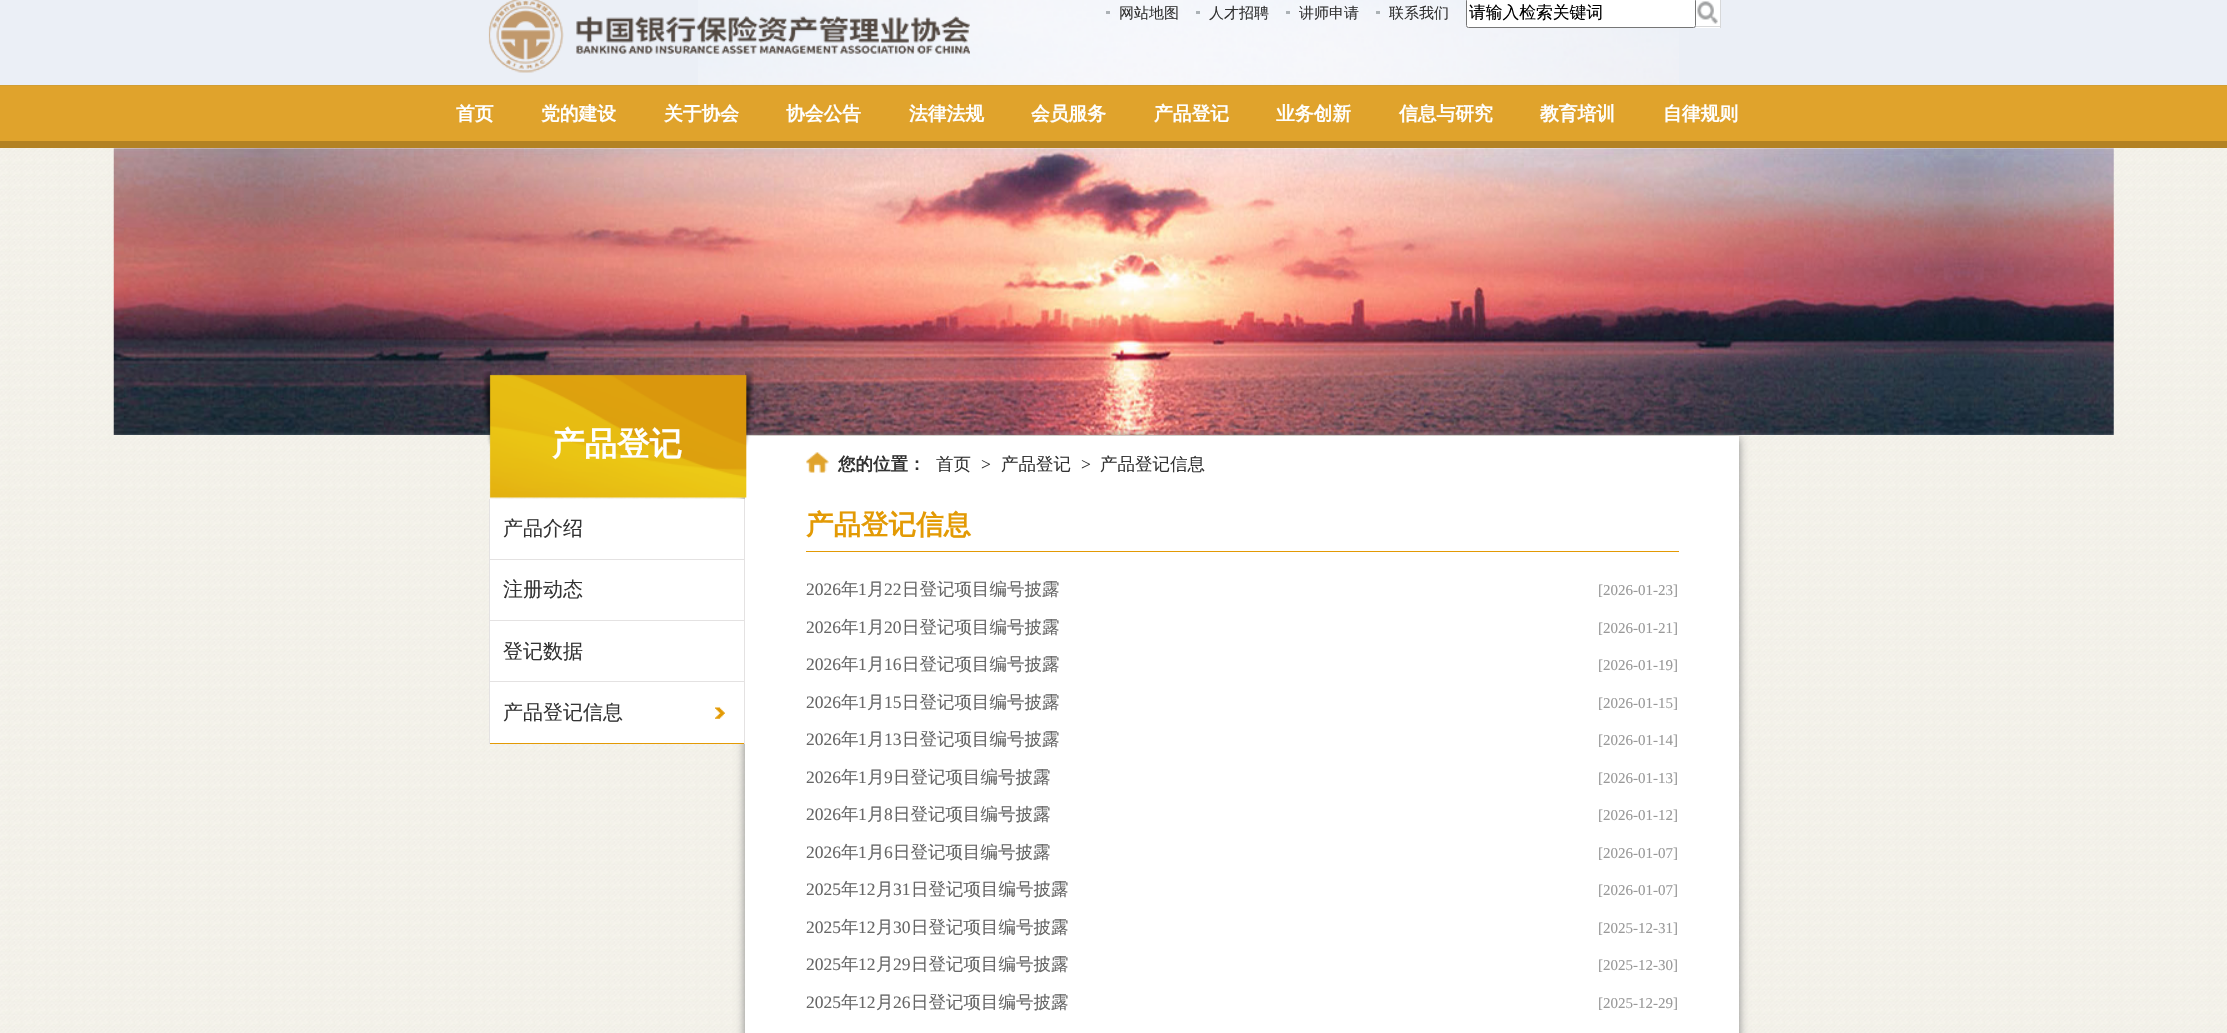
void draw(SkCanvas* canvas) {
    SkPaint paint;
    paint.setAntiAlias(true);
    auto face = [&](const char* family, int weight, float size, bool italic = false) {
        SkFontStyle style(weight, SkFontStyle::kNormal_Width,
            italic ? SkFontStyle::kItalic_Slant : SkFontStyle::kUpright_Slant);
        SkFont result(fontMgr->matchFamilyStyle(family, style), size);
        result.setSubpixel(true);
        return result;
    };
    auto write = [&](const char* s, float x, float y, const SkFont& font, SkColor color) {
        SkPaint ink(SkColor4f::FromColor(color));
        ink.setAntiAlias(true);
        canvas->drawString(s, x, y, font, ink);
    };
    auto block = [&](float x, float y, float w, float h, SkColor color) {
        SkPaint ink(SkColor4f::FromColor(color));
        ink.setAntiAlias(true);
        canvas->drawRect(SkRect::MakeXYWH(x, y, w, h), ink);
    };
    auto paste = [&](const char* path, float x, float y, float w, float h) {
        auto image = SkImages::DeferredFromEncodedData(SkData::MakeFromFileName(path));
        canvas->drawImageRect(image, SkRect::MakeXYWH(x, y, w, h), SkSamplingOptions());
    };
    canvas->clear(SK_ColorWHITE);
    block(0, 0, 2227, 85, SkColorSetRGB(235, 239, 246));
    paste("pic1.png", 698, 0, 981, 85);
    paste("pic2.png", 488, 0, 482, 73);
    block(1106, 11, 4, 3, SkColorSetRGB(172, 178, 182));
    auto kFont1 = face("WenQuanYi Zen Hei", 500, 15);
    write("网站地图", 1119, 18, kFont1, SkColorSetRGB(51, 51, 51));
    block(1196, 11, 4, 3, SkColorSetRGB(172, 178, 182));
    write("人才招聘", 1209, 18, kFont1, SkColorSetRGB(51, 51, 51));
    block(1286, 11, 4, 3, SkColorSetRGB(172, 178, 182));
    write("讲师申请", 1299, 18, kFont1, SkColorSetRGB(51, 51, 51));
    block(1376, 11, 4, 3, SkColorSetRGB(172, 178, 181));
    write("联系我们", 1389, 18, kFont1, SkColorSetRGB(51, 51, 51));
    paint.setColor(SK_ColorWHITE);
    canvas->drawRoundRect(SkRect::MakeXYWH(1466.5f, -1.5f, 229, 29), 2, 2, paint);
    paint.setStyle(SkPaint::kStroke_Style);
    paint.setStrokeWidth(1);
    paint.setColor(SkColorSetRGB(118, 118, 118));
    canvas->drawRoundRect(SkRect::MakeXYWH(1466.5f, -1.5f, 229, 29), 2, 2, paint);
    auto kFont2 = face("WenQuanYi Zen Hei", 500, 16.75f);
    write("请输入检索关键词", 1469, 18, kFont2, SK_ColorBLACK);
    block(1696, 0, 24, 28, SK_ColorWHITE);
    block(1720, 0, 1, 28, SkColorSetRGB(215, 216, 217));
    block(1696, 26, 25, 1, SkColorSetRGB(215, 216, 217));
    paste("pic3.png", 1697, 1, 21, 23);
    block(0, 86, 2227, 55, SkColorSetRGB(224, 163, 44));
    block(0, 85, 2227, 1, SkColorSetRGB(209, 158, 53));
    block(0, 141, 2227, 7, SkColorSetRGB(179, 130, 35));
    auto kFont3 = face("WenQuanYi Zen Hei", 700, 18.75f);
    write("首页", 456, 120, kFont3, SkColorSetRGB(255, 255, 254));
    write("党的建设", 541, 120, kFont3, SkColorSetRGB(255, 255, 254));
    write("关于协会", 664, 120, kFont3, SkColorSetRGB(255, 255, 254));
    write("协会公告", 786, 120, kFont3, SkColorSetRGB(255, 255, 254));
    write("法律法规", 909, 120, kFont3, SkColorSetRGB(255, 255, 254));
    write("会员服务", 1031, 120, kFont3, SkColorSetRGB(255, 255, 254));
    write("产品登记", 1154, 120, kFont3, SkColorSetRGB(255, 255, 254));
    write("业务创新", 1276, 120, kFont3, SkColorSetRGB(255, 255, 254));
    write("信息与研究", 1399, 120, kFont3, SkColorSetRGB(255, 255, 254));
    write("教育培训", 1540, 120, kFont3, SkColorSetRGB(255, 255, 254));
    write("自律规则", 1663, 120, kFont3, SkColorSetRGB(255, 255, 254));
    paste("pic4.png", 0, 148, 2227, 885);
    paste("pic5.png", 113, 148, 2001, 287);
    paint.setStyle(SkPaint::kFill_Style);
    paint.setColor(SkColorSetRGB(132, 132, 132));
    paint.setMaskFilter(SkMaskFilter::MakeBlur(kNormal_SkBlurStyle, 4.5f));
    canvas->drawRect(SkRect::MakeXYWH(745, 438, 994, 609), paint);
    paint.setMaskFilter(nullptr);
    block(745, 436, 994, 597, SK_ColorWHITE);
    paste("pic6.png", 482, 371, 272, 127);
    auto kFont4 = face("WenQuanYi Zen Hei", 700, 32.5f);
    write("产品登记", 552, 455, kFont4, SkColorSetRGB(255, 255, 254));
    block(744, 499, 1, 245, SkColorSetRGB(228, 226, 226));
    block(489, 499, 1, 245, SkColorSetRGB(228, 226, 226));
    block(490, 499, 254, 60, SK_ColorWHITE);
    block(490, 559, 254, 1, SkColorSetRGB(228, 226, 226));
    auto kFont5 = face("WenQuanYi Zen Hei", 500, 20);
    write("产品介绍", 503, 535, kFont5, SkColorSetRGB(51, 51, 51));
    block(490, 560, 254, 60, SK_ColorWHITE);
    block(490, 620, 254, 1, SkColorSetRGB(228, 226, 226));
    write("注册动态", 503, 596, kFont5, SkColorSetRGB(51, 51, 51));
    block(490, 621, 254, 122, SK_ColorWHITE);
    block(490, 681, 254, 1, SkColorSetRGB(228, 226, 226));
    write("登记数据", 503, 658, kFont5, SkColorSetRGB(51, 51, 51));
    paste("pic7.png", 715, 707, 10, 12);
    block(490, 743, 254, 1, SkColorSetRGB(227, 154, 4));
    write("产品登记信息", 503, 719, kFont5, SkColorSetRGB(51, 51, 51));
    paste("pic8.png", 806, 452, 23, 21);
    auto kFont6 = face("WenQuanYi Zen Hei", 700, 17.5f);
    write("您的位置：", 838, 470, kFont6, SkColorSetRGB(51, 51, 51));
    auto kFont7 = face("WenQuanYi Zen Hei", 500, 17.5f);
    write("首页", 936, 470, kFont7, SkColorSetRGB(51, 51, 51));
    auto kFont8 = face("Liberation Serif", 400, 17.5f);
    write(">", 981, 470, kFont8, SkColorSetRGB(51, 51, 51));
    write("产品登记", 1001, 470, kFont7, SkColorSetRGB(51, 51, 51));
    write(">", 1081, 470, kFont8, SkColorSetRGB(51, 51, 51));
    write("产品登记信息", 1100, 470, kFont7, SkColorSetRGB(51, 51, 51));
    block(806, 551, 873, 1, SkColorSetRGB(227, 154, 4));
    auto kFont9 = face("WenQuanYi Zen Hei", 700, 27.5f);
    write("产品登记信息", 806, 534, kFont9, SkColorSetRGB(227, 154, 4));
    write("2026", 806, 595, kFont8, SkColorSetRGB(102, 102, 102));
    write("年", 841, 595, kFont7, SkColorSetRGB(102, 102, 102));
    write("1", 858, 595, kFont8, SkColorSetRGB(102, 102, 102));
    write("月", 867, 595, kFont7, SkColorSetRGB(102, 102, 102));
    write("22", 884, 595, kFont8, SkColorSetRGB(102, 102, 102));
    write("日登记项目编号披露", 902, 595, kFont7, SkColorSetRGB(102, 102, 102));
    auto kFont10 = face("Liberation Serif", 400, 15);
    write("[2026-01-23]", 1598, 595, kFont10, SkColorSetRGB(153, 153, 153));
    write("2026", 806, 633, kFont8, SkColorSetRGB(102, 102, 102));
    write("年", 841, 633, kFont7, SkColorSetRGB(102, 102, 102));
    write("1", 858, 633, kFont8, SkColorSetRGB(102, 102, 102));
    write("月", 867, 633, kFont7, SkColorSetRGB(102, 102, 102));
    write("20", 884, 633, kFont8, SkColorSetRGB(102, 102, 102));
    write("日登记项目编号披露", 902, 633, kFont7, SkColorSetRGB(102, 102, 102));
    write("[2026-01-21]", 1598, 633, kFont10, SkColorSetRGB(153, 153, 153));
    write("2026", 806, 670, kFont8, SkColorSetRGB(102, 102, 102));
    write("年", 841, 670, kFont7, SkColorSetRGB(102, 102, 102));
    write("1", 858, 670, kFont8, SkColorSetRGB(102, 102, 102));
    write("月", 867, 670, kFont7, SkColorSetRGB(102, 102, 102));
    write("16", 884, 670, kFont8, SkColorSetRGB(102, 102, 102));
    write("日登记项目编号披露", 902, 670, kFont7, SkColorSetRGB(102, 102, 102));
    write("[2026-01-19]", 1598, 670, kFont10, SkColorSetRGB(153, 153, 153));
    write("2026", 806, 708, kFont8, SkColorSetRGB(102, 102, 102));
    write("年", 841, 708, kFont7, SkColorSetRGB(102, 102, 102));
    write("1", 858, 708, kFont8, SkColorSetRGB(102, 102, 102));
    write("月", 867, 708, kFont7, SkColorSetRGB(102, 102, 102));
    write("15", 884, 708, kFont8, SkColorSetRGB(102, 102, 102));
    write("日登记项目编号披露", 902, 708, kFont7, SkColorSetRGB(102, 102, 102));
    write("[2026-01-15]", 1598, 708, kFont10, SkColorSetRGB(153, 153, 153));
    write("2026", 806, 745, kFont8, SkColorSetRGB(102, 102, 102));
    write("年", 841, 745, kFont7, SkColorSetRGB(102, 102, 102));
    write("1", 858, 745, kFont8, SkColorSetRGB(102, 102, 102));
    write("月", 867, 745, kFont7, SkColorSetRGB(102, 102, 102));
    write("13", 884, 745, kFont8, SkColorSetRGB(102, 102, 102));
    write("日登记项目编号披露", 902, 745, kFont7, SkColorSetRGB(102, 102, 102));
    write("[2026-01-14]", 1598, 745, kFont10, SkColorSetRGB(153, 153, 153));
    write("2026", 806, 783, kFont8, SkColorSetRGB(102, 102, 102));
    write("年", 841, 783, kFont7, SkColorSetRGB(102, 102, 102));
    write("1", 858, 783, kFont8, SkColorSetRGB(102, 102, 102));
    write("月", 867, 783, kFont7, SkColorSetRGB(102, 102, 102));
    write("9", 884, 783, kFont8, SkColorSetRGB(102, 102, 102));
    write("日登记项目编号披露", 893, 783, kFont7, SkColorSetRGB(102, 102, 102));
    write("[2026-01-13]", 1598, 783, kFont10, SkColorSetRGB(153, 153, 153));
    write("2026", 806, 820, kFont8, SkColorSetRGB(102, 102, 102));
    write("年", 841, 820, kFont7, SkColorSetRGB(102, 102, 102));
    write("1", 858, 820, kFont8, SkColorSetRGB(102, 102, 102));
    write("月", 867, 820, kFont7, SkColorSetRGB(102, 102, 102));
    write("8", 884, 820, kFont8, SkColorSetRGB(102, 102, 102));
    write("日登记项目编号披露", 893, 820, kFont7, SkColorSetRGB(102, 102, 102));
    write("[2026-01-12]", 1598, 820, kFont10, SkColorSetRGB(153, 153, 153));
    write("2026", 806, 858, kFont8, SkColorSetRGB(102, 102, 102));
    write("年", 841, 858, kFont7, SkColorSetRGB(102, 102, 102));
    write("1", 858, 858, kFont8, SkColorSetRGB(102, 102, 102));
    write("月", 867, 858, kFont7, SkColorSetRGB(102, 102, 102));
    write("6", 884, 858, kFont8, SkColorSetRGB(102, 102, 102));
    write("日登记项目编号披露", 893, 858, kFont7, SkColorSetRGB(102, 102, 102));
    write("[2026-01-07]", 1598, 858, kFont10, SkColorSetRGB(153, 153, 153));
    write("2025", 806, 895, kFont8, SkColorSetRGB(102, 102, 102));
    write("年", 841, 895, kFont7, SkColorSetRGB(102, 102, 102));
    write("12", 858, 895, kFont8, SkColorSetRGB(102, 102, 102));
    write("月", 876, 895, kFont7, SkColorSetRGB(102, 102, 102));
    write("31", 893, 895, kFont8, SkColorSetRGB(102, 102, 102));
    write("日登记项目编号披露", 911, 895, kFont7, SkColorSetRGB(102, 102, 102));
    write("[2026-01-07]", 1598, 895, kFont10, SkColorSetRGB(153, 153, 153));
    write("2025", 806, 933, kFont8, SkColorSetRGB(102, 102, 102));
    write("年", 841, 933, kFont7, SkColorSetRGB(102, 102, 102));
    write("12", 858, 933, kFont8, SkColorSetRGB(102, 102, 102));
    write("月", 876, 933, kFont7, SkColorSetRGB(102, 102, 102));
    write("30", 893, 933, kFont8, SkColorSetRGB(102, 102, 102));
    write("日登记项目编号披露", 911, 933, kFont7, SkColorSetRGB(102, 102, 102));
    write("[2025-12-31]", 1598, 933, kFont10, SkColorSetRGB(153, 153, 153));
    write("2025", 806, 970, kFont8, SkColorSetRGB(102, 102, 102));
    write("年", 841, 970, kFont7, SkColorSetRGB(102, 102, 102));
    write("12", 858, 970, kFont8, SkColorSetRGB(102, 102, 102));
    write("月", 876, 970, kFont7, SkColorSetRGB(102, 102, 102));
    write("29", 893, 970, kFont8, SkColorSetRGB(102, 102, 102));
    write("日登记项目编号披露", 911, 970, kFont7, SkColorSetRGB(102, 102, 102));
    write("[2025-12-30]", 1598, 970, kFont10, SkColorSetRGB(153, 153, 153));
    write("2025", 806, 1008, kFont8, SkColorSetRGB(102, 102, 102));
    write("年", 841, 1008, kFont7, SkColorSetRGB(102, 102, 102));
    write("12", 858, 1008, kFont8, SkColorSetRGB(102, 102, 102));
    write("月", 876, 1008, kFont7, SkColorSetRGB(102, 102, 102));
    write("26", 893, 1008, kFont8, SkColorSetRGB(102, 102, 102));
    write("日登记项目编号披露", 911, 1008, kFont7, SkColorSetRGB(102, 102, 102));
    write("[2025-12-29]", 1598, 1008, kFont10, SkColorSetRGB(153, 153, 153));
}
